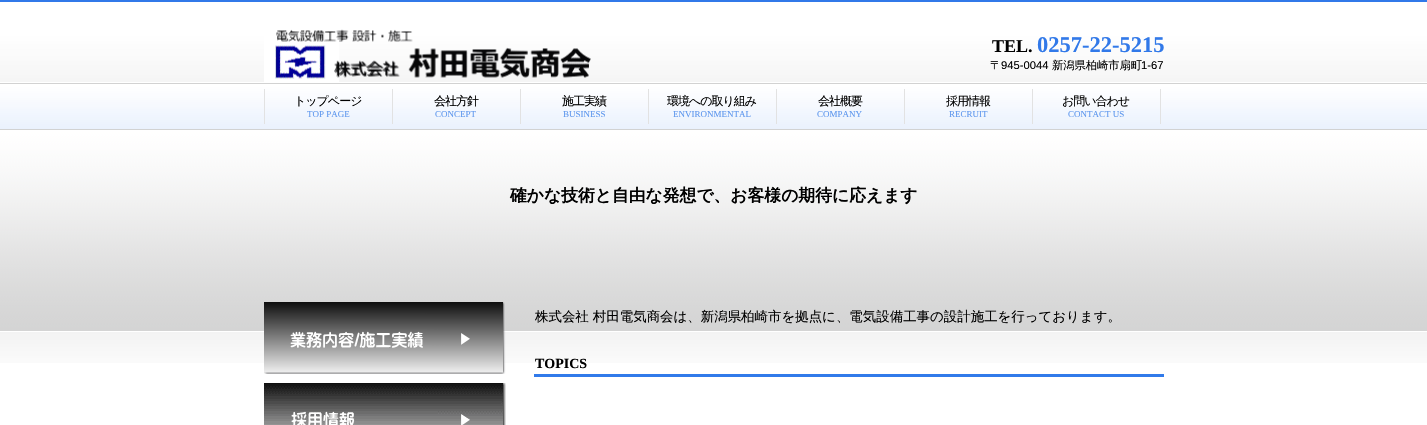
void draw(SkCanvas* canvas) {
    SkPaint paint;
    paint.setAntiAlias(true);
    auto face = [&](const char* family, int weight, float size, bool italic = false) {
        SkFontStyle style(weight, SkFontStyle::kNormal_Width,
            italic ? SkFontStyle::kItalic_Slant : SkFontStyle::kUpright_Slant);
        SkFont result(fontMgr->matchFamilyStyle(family, style), size);
        result.setSubpixel(true);
        return result;
    };
    auto write = [&](const char* s, float x, float y, const SkFont& font, SkColor color) {
        SkPaint ink(SkColor4f::FromColor(color));
        ink.setAntiAlias(true);
        canvas->drawString(s, x, y, font, ink);
    };
    auto writeSpaced = [&](const char* s, float x, float y, const SkFont& font, const SkPaint& ink, float letter, float word) {
        std::vector<SkGlyphID> glyphs(font.countText(s, strlen(s), SkTextEncoding::kUTF8));
        std::vector<float> xs(glyphs.size());
        font.textToGlyphs(s, strlen(s), SkTextEncoding::kUTF8, glyphs);
        font.getXPos(glyphs, xs, x);
        float extra = 0;
        for (size_t i = 0; i < glyphs.size(); i++) {
            xs[i] += extra;
            extra += letter + word * (glyphs[i] == font.unicharToGlyph(' '));
        }
        canvas->drawTextBlob(SkTextBlob::MakeFromPosHGlyphs(glyphs, xs, y, font), 0, 0, ink);
    };
    auto block = [&](float x, float y, float w, float h, SkColor color) {
        SkPaint ink(SkColor4f::FromColor(color));
        ink.setAntiAlias(true);
        canvas->drawRect(SkRect::MakeXYWH(x, y, w, h), ink);
    };
    auto paste = [&](const char* path, float x, float y, float w, float h) {
        auto image = SkImages::DeferredFromEncodedData(SkData::MakeFromFileName(path));
        canvas->drawImageRect(image, SkRect::MakeXYWH(x, y, w, h), SkSamplingOptions());
    };
    canvas->clear(SK_ColorWHITE);
    paste("pic1.png", 0, 0, 1427, 363);
    paste("pic2.png", 264, 29, 327, 53);
    auto kFont1 = face("Liberation Serif", 700, 18);
    write("TEL.", 992, 52, kFont1, SK_ColorBLACK);
    auto kFont2 = face("Liberation Serif", 700, 22.5f);
    write("0257-22-5215", 1037, 52, kFont2, SkColorSetRGB(49, 121, 233));
    auto kFont3 = face("WenQuanYi Zen Hei", 500, 11.25f);
    write("〒", 990, 69, kFont3, SK_ColorBLACK);
    auto kFont4 = face("Liberation Sans", 400, 11.25f);
    write("945-0044", 1001, 69, kFont4, SK_ColorBLACK);
    write("新潟県柏崎市扇町", 1052, 69, kFont3, SK_ColorBLACK);
    write("1-67", 1141, 69, kFont4, SK_ColorBLACK);
    block(264, 89, 1, 35, SkColorSetRGB(226, 226, 226));
    block(392, 89, 1, 35, SkColorSetRGB(226, 226, 226));
    auto kFont5 = face("WenQuanYi Zen Hei", 500, 12);
    paint.setColor(SK_ColorBLACK);
    writeSpaced("トップページ", 294, 105, kFont5, paint, -1, 0);
    auto kFont6 = face("Liberation Serif", 400, 9);
    write("TOP PAGE", 307, 117, kFont6, SkColorSetRGB(97, 153, 238));
    block(520, 89, 1, 35, SkColorSetRGB(226, 226, 226));
    writeSpaced("会社方針", 434, 105, kFont5, paint, -1, 0);
    write("CONCEPT", 435, 117, kFont6, SkColorSetRGB(97, 153, 238));
    block(648, 89, 1, 35, SkColorSetRGB(226, 226, 226));
    writeSpaced("施工実績", 562, 105, kFont5, paint, -1, 0);
    write("BUSINESS", 563, 117, kFont6, SkColorSetRGB(97, 153, 238));
    block(776, 89, 1, 35, SkColorSetRGB(226, 226, 226));
    writeSpaced("環境への取り組み", 667, 105, kFont5, paint, -1, 0);
    write("ENVIRONMENTAL", 673, 117, kFont6, SkColorSetRGB(97, 153, 238));
    block(904, 89, 1, 35, SkColorSetRGB(226, 226, 226));
    writeSpaced("会社概要", 818, 105, kFont5, paint, -1, 0);
    write("COMPANY", 817, 117, kFont6, SkColorSetRGB(97, 153, 238));
    block(1032, 89, 1, 35, SkColorSetRGB(226, 226, 226));
    writeSpaced("採用情報", 946, 105, kFont5, paint, -1, 0);
    write("RECRUIT", 949, 117, kFont6, SkColorSetRGB(97, 153, 238));
    block(1160, 89, 1, 35, SkColorSetRGB(226, 226, 226));
    writeSpaced("お問い合わせ", 1062, 105, kFont5, paint, -1, 0);
    write("CONTACT US", 1068, 117, kFont6, SkColorSetRGB(97, 153, 238));
    paste("pic3.png", 264, 302, 242, 72);
    paste("pic4.png", 264, 383, 242, 42);
    auto kFont7 = face("WenQuanYi Zen Hei", 700, 16.8f);
    write("確かな技術と自由な発想で、お客様の期待に応えます", 510, 201, kFont7, SK_ColorBLACK);
    auto kFont8 = face("WenQuanYi Zen Hei", 500, 13.45f);
    write("株式会社 村田電気商会は、新潟県柏崎市を拠点に、電気設備工事の設計施工を行っております。", 535, 321, kFont8, SK_ColorBLACK);
    block(534, 374, 630, 3, SkColorSetRGB(49, 122, 234));
    auto kFont9 = face("Liberation Serif", 700, 14);
    write("TOPICS", 535, 368, kFont9, SK_ColorBLACK);
}
